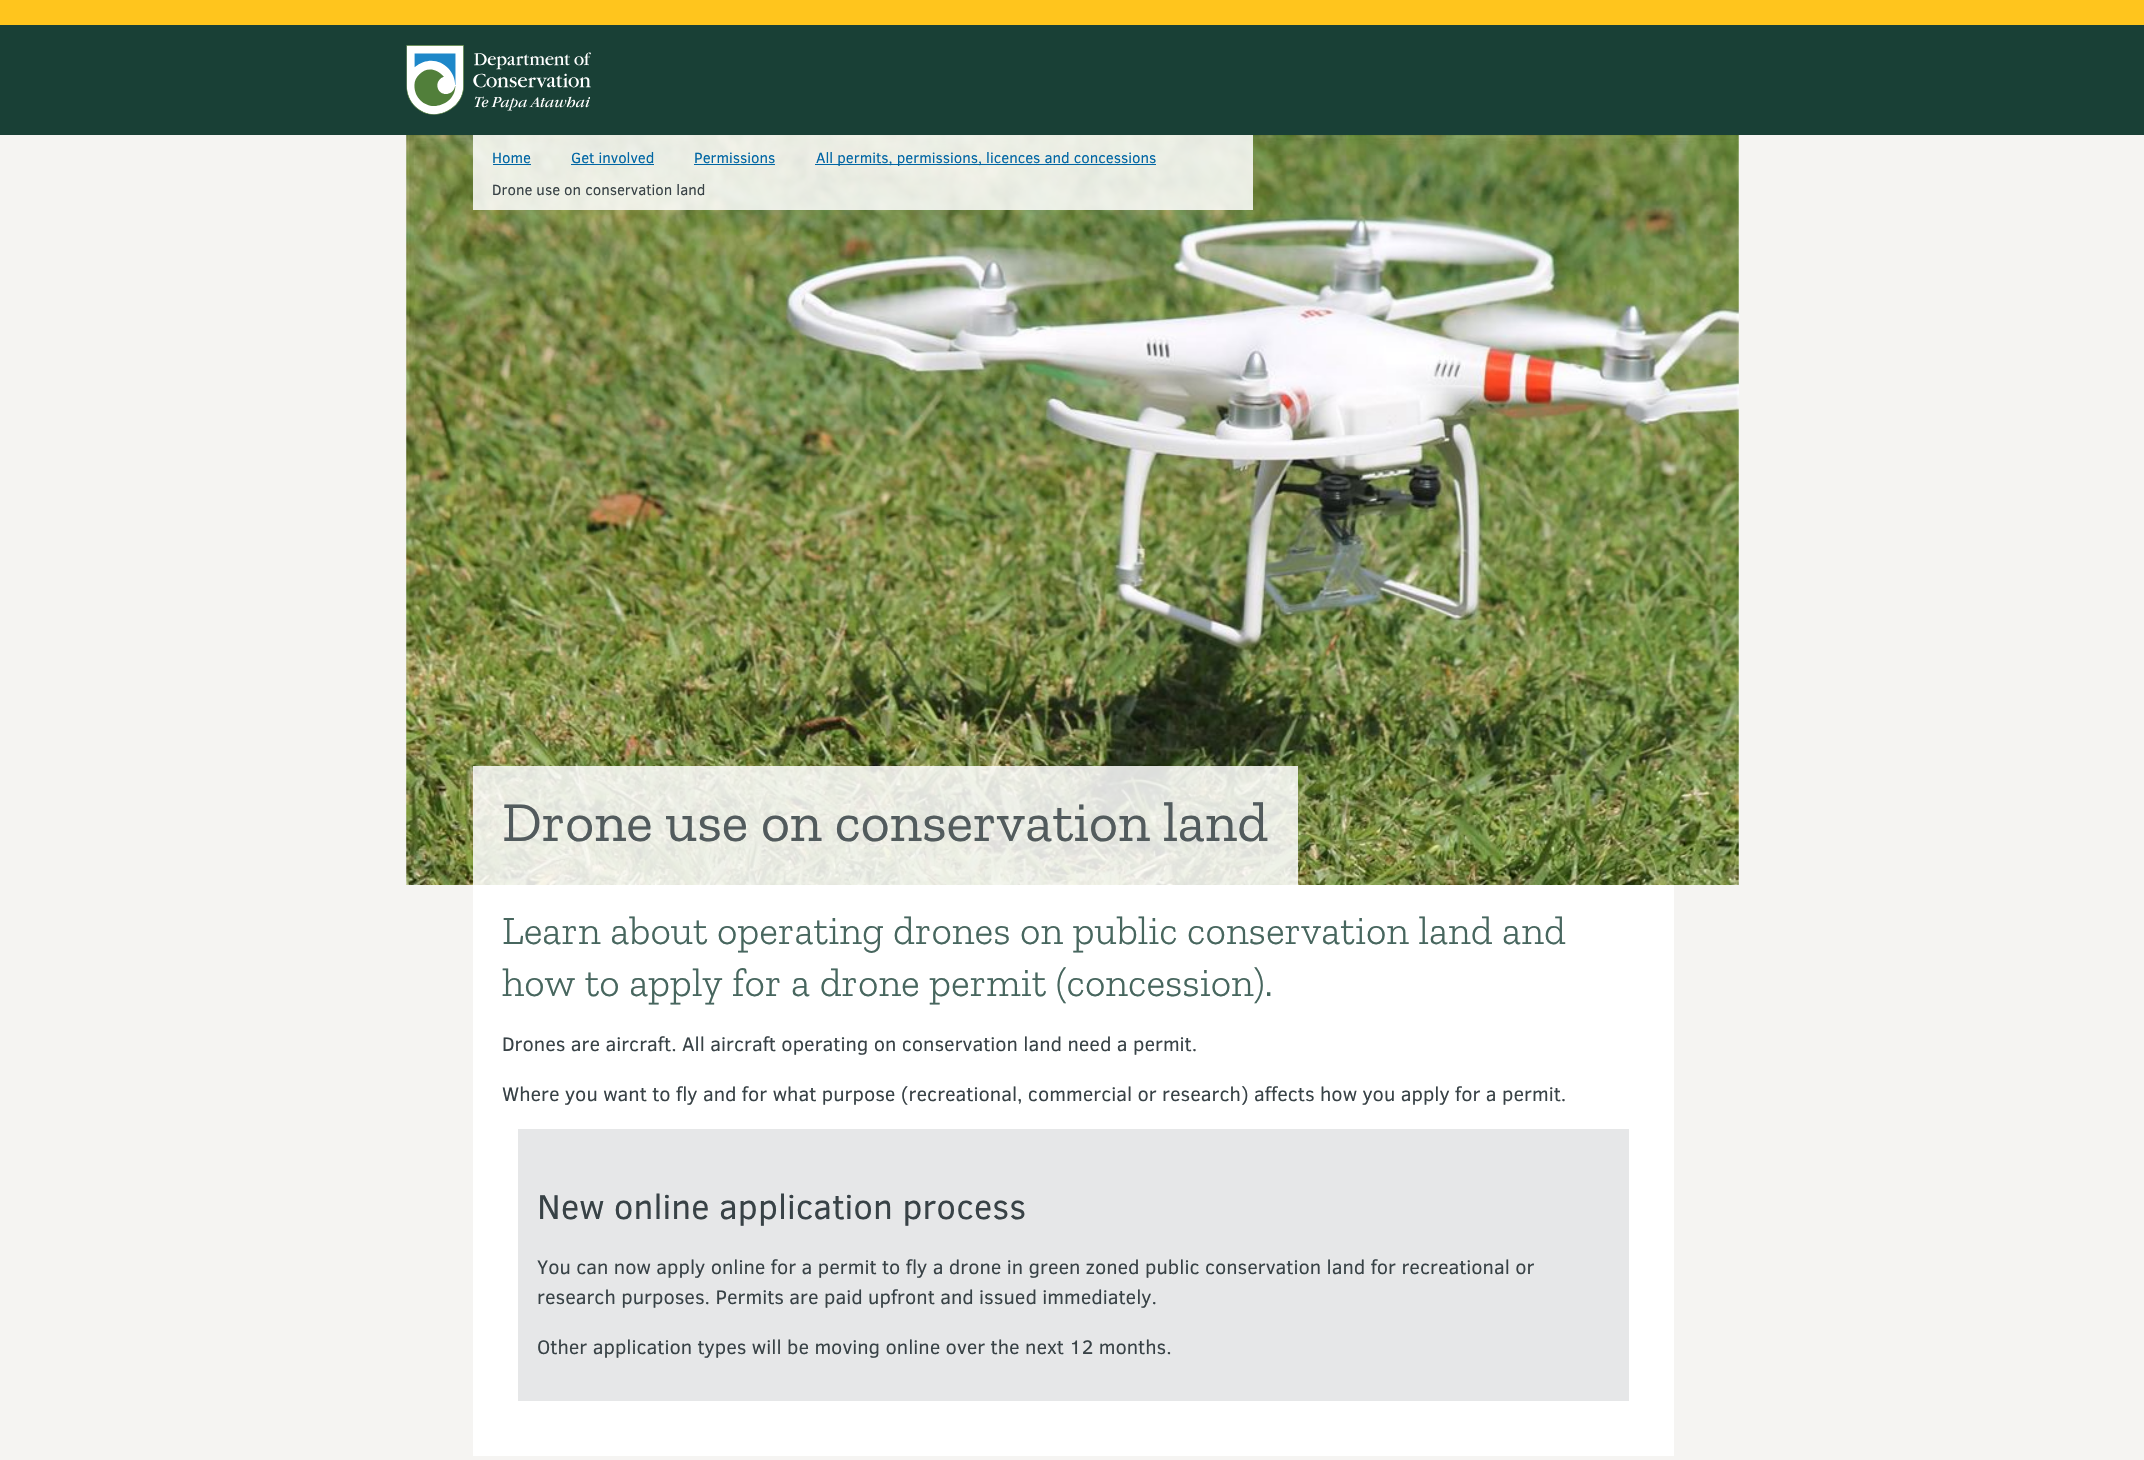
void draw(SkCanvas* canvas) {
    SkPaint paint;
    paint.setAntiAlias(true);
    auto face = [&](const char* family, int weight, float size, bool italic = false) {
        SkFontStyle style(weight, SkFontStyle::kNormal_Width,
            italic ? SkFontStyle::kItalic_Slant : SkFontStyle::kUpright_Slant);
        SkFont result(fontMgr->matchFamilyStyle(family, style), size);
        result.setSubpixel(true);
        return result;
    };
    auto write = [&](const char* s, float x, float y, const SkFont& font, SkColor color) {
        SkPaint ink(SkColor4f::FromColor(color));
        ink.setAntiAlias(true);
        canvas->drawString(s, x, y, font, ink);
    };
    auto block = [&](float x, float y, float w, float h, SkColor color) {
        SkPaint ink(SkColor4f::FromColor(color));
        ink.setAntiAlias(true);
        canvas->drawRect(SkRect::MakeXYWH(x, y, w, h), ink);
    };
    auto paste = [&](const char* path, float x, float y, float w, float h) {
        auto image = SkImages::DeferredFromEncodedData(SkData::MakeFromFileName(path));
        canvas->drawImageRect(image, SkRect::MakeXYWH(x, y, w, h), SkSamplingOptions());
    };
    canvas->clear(SkColorSetRGB(245, 244, 242));
    block(0, 0, 2144, 25, SkColorSetRGB(255, 197, 29));
    block(0, 25, 2144, 110, SkColorSetRGB(25, 64, 54));
    paste("pic1.png", 406, 45, 185, 70);
    paste("pic2.png", 406, 135, 1333, 750);
    block(473, 135, 780, 75, SkColorSetARGB(217, 255, 255, 255));
    auto kFont1 = face("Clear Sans", 400, 15);
    write("Home", 492, 163, kFont1, SkColorSetRGB(0, 102, 164));
    block(493, 164, 38, 1, SkColorSetRGB(0, 102, 164));
    write("Get involved", 571, 163, kFont1, SkColorSetRGB(0, 102, 164));
    block(571, 164, 83, 1, SkColorSetRGB(0, 102, 164));
    write("Permissions", 694, 163, kFont1, SkColorSetRGB(0, 102, 164));
    block(694, 164, 81, 1, SkColorSetRGB(0, 102, 164));
    block(815, 164, 341, 1, SkColorSetRGB(0, 102, 164));
    write("All permits, permissions, licences and concessions", 816, 163, kFont1, SkColorSetRGB(0, 102, 164));
    write("Drone use on conservation land", 492, 195, kFont1, SkColorSetRGB(56, 66, 70));
    block(473, 766, 825, 119, SkColorSetARGB(217, 255, 255, 255));
    auto kFont2 = face("Zilla Slab", 400, 56.25f);
    write("Drone use on conservation land", 502, 841, kFont2, SkColorSetRGB(82, 91, 93));
    block(473, 885, 1201, 571, SK_ColorWHITE);
    auto kFont3 = face("Zilla Slab", 300, 40);
    write("Learn about operating drones on public conservation land and", 502, 944, kFont3, SkColorSetRGB(71, 102, 94));
    write("how to apply for a drone permit (concession).", 502, 996, kFont3, SkColorSetRGB(71, 102, 94));
    auto kFont4 = face("Clear Sans", 400, 20);
    write("Drones are aircraft. All aircraft operating on conservation land need a permit.", 502, 1051, kFont4, SkColorSetRGB(56, 66, 70));
    write("Where you want to fly and for what purpose (recreational, commercial or research) affects how you apply for a permit.", 502, 1101, kFont4, SkColorSetRGB(56, 66, 70));
    block(518, 1129, 1111, 272, SkColorSetRGB(230, 231, 232));
    auto kFont5 = face("Clear Sans", 400, 35);
    write("New online application process", 537, 1219, kFont5, SkColorSetRGB(56, 66, 70));
    write("You can now apply online for a permit to fly a drone in green zoned public conservation land for recreational or", 537, 1274, kFont4, SkColorSetRGB(56, 66, 70));
    write("research purposes. Permits are paid upfront and issued immediately.", 537, 1304, kFont4, SkColorSetRGB(56, 66, 70));
    write("Other application types will be moving online over the next 12 months.", 537, 1354, kFont4, SkColorSetRGB(56, 66, 70));
}
